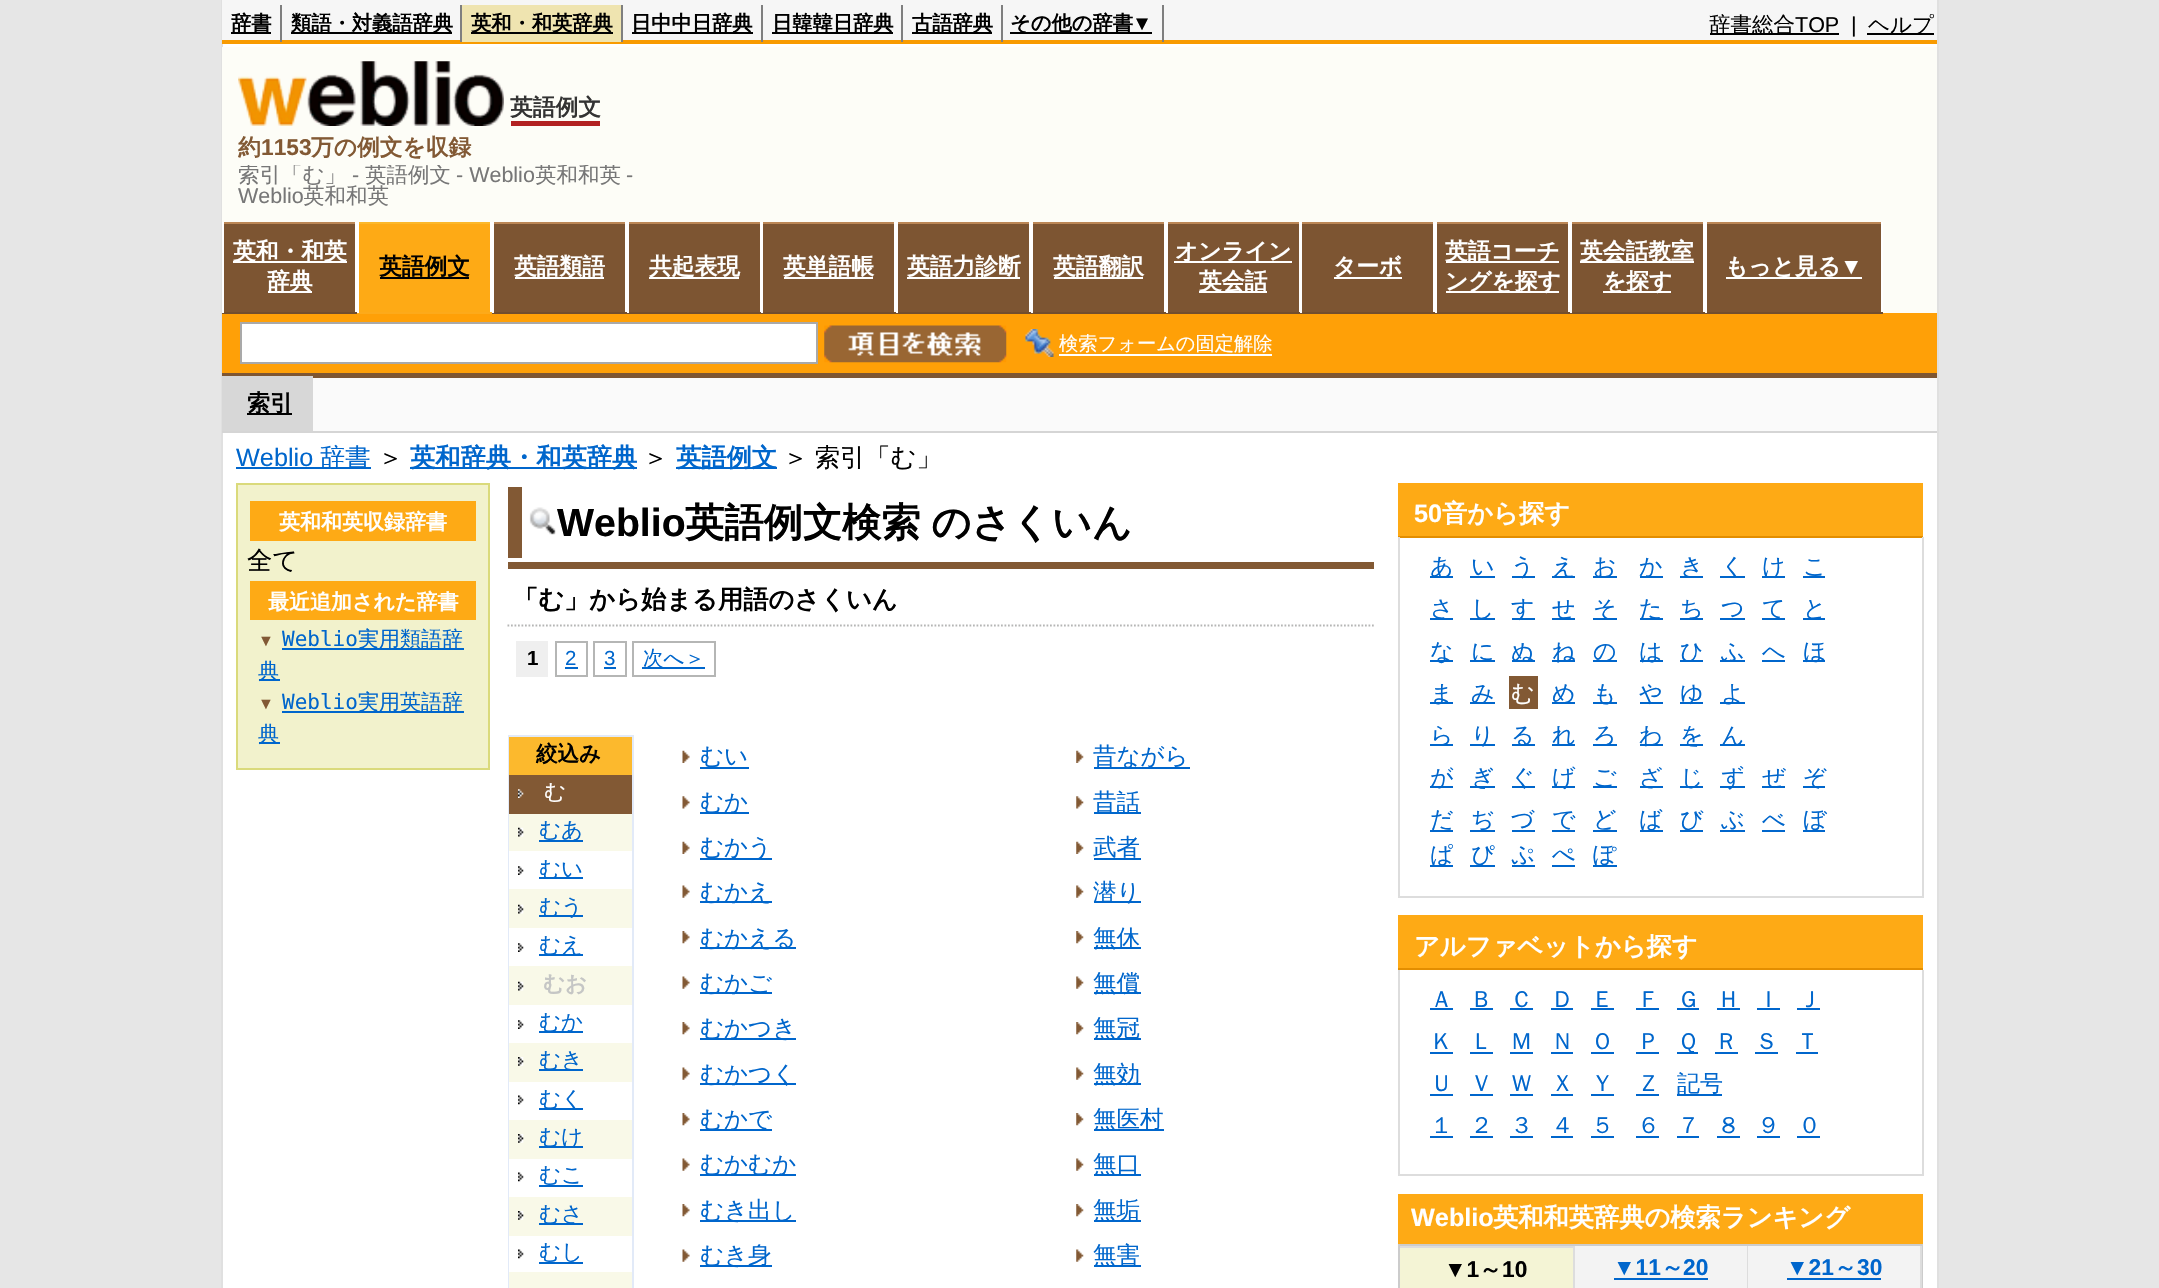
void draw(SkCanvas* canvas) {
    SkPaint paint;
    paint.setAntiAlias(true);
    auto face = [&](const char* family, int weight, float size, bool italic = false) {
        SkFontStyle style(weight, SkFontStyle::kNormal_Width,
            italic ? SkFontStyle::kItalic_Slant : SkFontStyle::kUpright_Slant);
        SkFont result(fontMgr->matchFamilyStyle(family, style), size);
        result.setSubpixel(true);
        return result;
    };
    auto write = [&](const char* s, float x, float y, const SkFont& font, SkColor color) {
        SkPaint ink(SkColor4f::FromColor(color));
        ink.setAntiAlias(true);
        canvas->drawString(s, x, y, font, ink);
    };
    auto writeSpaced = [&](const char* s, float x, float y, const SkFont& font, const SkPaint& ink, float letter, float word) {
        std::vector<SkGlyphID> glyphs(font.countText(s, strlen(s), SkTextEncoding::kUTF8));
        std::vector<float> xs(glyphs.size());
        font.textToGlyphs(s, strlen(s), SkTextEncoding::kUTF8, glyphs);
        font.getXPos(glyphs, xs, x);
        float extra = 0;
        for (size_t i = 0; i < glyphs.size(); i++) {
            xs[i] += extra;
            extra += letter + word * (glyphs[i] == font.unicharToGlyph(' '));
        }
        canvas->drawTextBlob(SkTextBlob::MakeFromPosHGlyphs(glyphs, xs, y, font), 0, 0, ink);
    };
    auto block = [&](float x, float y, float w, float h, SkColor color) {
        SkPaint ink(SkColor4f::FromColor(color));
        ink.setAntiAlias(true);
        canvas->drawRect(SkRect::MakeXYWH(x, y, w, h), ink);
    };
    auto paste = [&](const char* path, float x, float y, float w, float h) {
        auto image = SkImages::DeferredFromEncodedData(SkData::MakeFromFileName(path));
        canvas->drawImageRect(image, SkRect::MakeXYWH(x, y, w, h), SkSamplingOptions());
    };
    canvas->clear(SkColorSetRGB(230, 230, 230));
    block(223, 44, 1714, 1244, SK_ColorWHITE);
    block(1937, 0, 2, 1288, SkColorSetRGB(224, 224, 224));
    block(221, 0, 2, 1288, SkColorSetRGB(224, 224, 224));
    block(222, 0, 1715, 40, SkColorSetRGB(246, 246, 246));
    block(222, 40, 1715, 4, SkColorSetRGB(248, 155, 1));
    block(280, 5, 2, 37, SkColorSetRGB(127, 127, 127));
    block(231, 32, 40, 2, SK_ColorBLACK);
    auto kFont1 = face("WenQuanYi Zen Hei", 700, 20.25f);
    write("辞書", 231, 30, kFont1, SK_ColorBLACK);
    block(460, 5, 2, 37, SkColorSetRGB(127, 127, 127));
    block(291, 32, 161, 2, SK_ColorBLACK);
    write("類語・対義語辞典", 291, 30, kFont1, SK_ColorBLACK);
    block(462, 5, 159, 37, SkColorSetRGB(239, 228, 176));
    block(621, 5, 2, 37, SkColorSetRGB(127, 127, 127));
    block(471, 32, 142, 2, SK_ColorBLACK);
    write("英和・和英辞典", 471, 30, kFont1, SK_ColorBLACK);
    block(761, 5, 2, 37, SkColorSetRGB(127, 127, 127));
    block(632, 32, 121, 2, SK_ColorBLACK);
    write("日中中日辞典", 631, 30, kFont1, SK_ColorBLACK);
    block(901, 5, 2, 37, SkColorSetRGB(127, 127, 127));
    block(772, 32, 121, 2, SK_ColorBLACK);
    write("日韓韓日辞典", 772, 30, kFont1, SK_ColorBLACK);
    block(1001, 5, 2, 37, SkColorSetRGB(127, 127, 127));
    block(912, 32, 80, 2, SK_ColorBLACK);
    write("古語辞典", 912, 30, kFont1, SK_ColorBLACK);
    block(1162, 5, 2, 37, SkColorSetRGB(127, 127, 127));
    block(1010, 32, 142, 2, SK_ColorBLACK);
    write("その他の辞書", 1010, 30, kFont1, SK_ColorBLACK);
    auto kFont2 = face("Liberation Sans", 700, 20.25f);
    write("▼", 1132, 30, kFont2, SK_ColorBLACK);
    block(1710, 33, 129, 2, SK_ColorBLACK);
    auto kFont3 = face("WenQuanYi Zen Hei", 500, 21.5f);
    write("辞書総合", 1709, 32, kFont3, SK_ColorBLACK);
    auto kFont4 = face("Liberation Sans", 400, 21.5f);
    write("TOP", 1795, 32, kFont4, SK_ColorBLACK);
    write("|", 1851, 32, kFont4, SK_ColorBLACK);
    block(1867, 33, 67, 2, SK_ColorBLACK);
    write("ヘルプ", 1868, 32, kFont3, SK_ColorBLACK);
    block(222, 47, 1715, 175, SkColorSetRGB(253, 253, 247));
    paste("pic1.png", 238, 61, 266, 65);
    auto kFont5 = face("WenQuanYi Zen Hei", 700, 22.75f);
    write("英語例文", 510, 115, kFont5, SkColorSetRGB(51, 51, 51));
    block(511, 121, 89, 5, SkColorSetRGB(178, 34, 34));
    write("約", 238, 155, kFont5, SkColorSetRGB(130, 89, 52));
    auto kFont6 = face("Liberation Sans", 700, 22.75f);
    write("1153", 261, 155, kFont6, SkColorSetRGB(130, 89, 52));
    write("万の例文を収録", 311, 155, kFont5, SkColorSetRGB(130, 89, 52));
    canvas->save();
    canvas->clipRect(SkRect::MakeXYWH(238, 165, 420, 42));
    write("索引「む」", 238, 182, kFont3, SkColorSetRGB(119, 119, 119));
    canvas->restore();
    write("-", 352, 182, kFont4, SkColorSetRGB(119, 119, 119));
    canvas->save();
    canvas->clipRect(SkRect::MakeXYWH(238, 165, 420, 42));
    write("英語例文", 365, 182, kFont3, SkColorSetRGB(119, 119, 119));
    canvas->restore();
    write("- Weblio", 456, 182, kFont4, SkColorSetRGB(119, 119, 119));
    canvas->save();
    canvas->clipRect(SkRect::MakeXYWH(238, 165, 420, 42));
    write("英和和英", 535, 182, kFont3, SkColorSetRGB(119, 119, 119));
    canvas->restore();
    write("-", 626, 182, kFont4, SkColorSetRGB(119, 119, 119));
    write("Weblio", 238, 203, kFont4, SkColorSetRGB(119, 119, 119));
    write("英和和英", 303, 203, kFont3, SkColorSetRGB(119, 119, 119));
    block(1883, 222, 54, 91, SkColorSetRGB(253, 253, 247));
    block(224, 224, 131, 88, SkColorSetRGB(125, 85, 50));
    block(222, 222, 135, 2, SkColorSetRGB(187, 134, 85));
    block(355, 222, 2, 2, SK_ColorWHITE);
    block(222, 313, 1715, 60, SkColorSetRGB(255, 160, 7));
    block(222, 312, 135, 2, SkColorSetRGB(114, 78, 46));
    block(222, 222, 2, 91, SK_ColorWHITE);
    block(233, 261, 114, 2, SK_ColorWHITE);
    write("英和・和英", 233, 259, kFont5, SK_ColorWHITE);
    block(268, 291, 44, 2, SK_ColorWHITE);
    write("辞典", 267, 289, kFont5, SK_ColorWHITE);
    block(359, 224, 131, 88, SkColorSetRGB(254, 170, 21));
    block(357, 222, 135, 2, SkColorSetRGB(252, 184, 43));
    block(490, 222, 2, 2, SK_ColorWHITE);
    block(357, 312, 135, 2, SkColorSetRGB(253, 170, 26));
    block(357, 222, 2, 91, SK_ColorWHITE);
    write("英語例文", 379, 274, kFont5, SK_ColorBLACK);
    block(380, 277, 89, 2, SK_ColorBLACK);
    block(494, 224, 131, 88, SkColorSetRGB(125, 85, 50));
    block(492, 222, 1213, 2, SkColorSetRGB(187, 134, 85));
    block(625, 222, 2, 2, SK_ColorWHITE);
    block(492, 312, 1213, 2, SkColorSetRGB(114, 78, 46));
    block(492, 222, 2, 91, SK_ColorWHITE);
    block(515, 277, 89, 2, SK_ColorWHITE);
    write("英語類語", 514, 274, kFont5, SK_ColorWHITE);
    block(629, 224, 131, 88, SkColorSetRGB(125, 85, 50));
    block(760, 222, 1, 2, SK_ColorWHITE);
    block(627, 222, 2, 91, SK_ColorWHITE);
    block(649, 277, 90, 2, SK_ColorWHITE);
    write("共起表現", 649, 274, kFont5, SK_ColorWHITE);
    block(763, 224, 131, 88, SkColorSetRGB(125, 85, 50));
    block(894, 222, 2, 2, SK_ColorWHITE);
    block(761, 222, 2, 91, SK_ColorWHITE);
    write("英単語帳", 783, 274, kFont5, SK_ColorWHITE);
    block(784, 277, 89, 2, SK_ColorWHITE);
    block(898, 224, 131, 88, SkColorSetRGB(125, 85, 50));
    block(1029, 222, 2, 2, SK_ColorWHITE);
    block(896, 222, 2, 91, SK_ColorWHITE);
    write("英語力診断", 907, 274, kFont5, SK_ColorWHITE);
    block(907, 277, 113, 2, SK_ColorWHITE);
    block(1033, 224, 131, 88, SkColorSetRGB(125, 85, 50));
    block(1164, 222, 2, 2, SK_ColorWHITE);
    block(1031, 222, 2, 91, SK_ColorWHITE);
    block(1054, 277, 89, 2, SK_ColorWHITE);
    write("英語翻訳", 1053, 274, kFont5, SK_ColorWHITE);
    block(1168, 224, 131, 88, SkColorSetRGB(125, 85, 50));
    block(1299, 222, 1, 2, SK_ColorWHITE);
    block(1166, 222, 2, 91, SK_ColorWHITE);
    block(1174, 261, 118, 2, SK_ColorWHITE);
    write("オンライン", 1175, 259, kFont5, SK_ColorWHITE);
    block(1199, 291, 68, 2, SK_ColorWHITE);
    write("英会話", 1199, 289, kFont5, SK_ColorWHITE);
    block(1302, 224, 131, 88, SkColorSetRGB(125, 85, 50));
    block(1433, 222, 2, 2, SK_ColorWHITE);
    block(1300, 222, 2, 91, SK_ColorWHITE);
    block(1334, 277, 68, 2, SK_ColorWHITE);
    write("ターボ", 1333, 274, kFont5, SK_ColorWHITE);
    block(1437, 224, 131, 88, SkColorSetRGB(125, 85, 50));
    block(1568, 222, 2, 2, SK_ColorWHITE);
    block(1435, 222, 2, 91, SK_ColorWHITE);
    block(1446, 261, 113, 2, SK_ColorWHITE);
    write("英語コーチ", 1445, 259, kFont5, SK_ColorWHITE);
    block(1446, 291, 113, 2, SK_ColorWHITE);
    write("ングを探す", 1445, 289, kFont5, SK_ColorWHITE);
    block(1572, 224, 131, 88, SkColorSetRGB(125, 85, 50));
    block(1703, 222, 2, 2, SK_ColorWHITE);
    block(1570, 222, 2, 91, SK_ColorWHITE);
    block(1580, 261, 114, 2, SK_ColorWHITE);
    write("英会話教室", 1580, 259, kFont5, SK_ColorWHITE);
    block(1603, 291, 68, 2, SK_ColorWHITE);
    write("を探す", 1603, 289, kFont5, SK_ColorWHITE);
    block(1707, 224, 174, 88, SkColorSetRGB(125, 85, 50));
    block(1705, 222, 178, 2, SkColorSetRGB(187, 134, 85));
    block(1881, 222, 2, 2, SK_ColorWHITE);
    block(1705, 312, 178, 2, SkColorSetRGB(114, 78, 46));
    block(1705, 222, 2, 91, SK_ColorWHITE);
    block(1726, 277, 136, 2, SK_ColorWHITE);
    write("もっと見る", 1725, 274, kFont5, SK_ColorWHITE);
    write("▼", 1840, 274, kFont6, SK_ColorWHITE);
    block(222, 373, 1715, 5, SkColorSetRGB(126, 86, 50));
    block(242, 324, 574, 38, SK_ColorWHITE);
    block(240, 322, 577, 2, SkColorSetRGB(169, 169, 169));
    block(816, 322, 2, 42, SkColorSetRGB(169, 169, 169));
    block(240, 362, 577, 2, SkColorSetRGB(169, 169, 169));
    block(240, 322, 2, 42, SkColorSetRGB(169, 169, 169));
    paste("pic2.png", 824, 325, 183, 38);
    paste("pic3.png", 1025, 329, 29, 28);
    auto kFont7 = face("WenQuanYi Zen Hei", 500, 19.25f);
    write("検索フォームの固定解除", 1059, 350, kFont7, SK_ColorWHITE);
    block(1059, 354, 213, 2, SK_ColorWHITE);
    block(313, 378, 1624, 53, SkColorSetRGB(250, 250, 250));
    block(222, 431, 1715, 2, SkColorSetRGB(213, 213, 213));
    block(222, 376, 91, 55, SkColorSetRGB(215, 215, 215));
    block(247, 413, 45, 2, SK_ColorBLACK);
    auto kFont8 = face("WenQuanYi Zen Hei", 700, 23);
    write("索引", 247, 411, kFont8, SK_ColorBLACK);
    auto kFont9 = face("Liberation Sans", 400, 25.25f);
    write("Weblio", 236, 466, kFont9, SkColorSetRGB(0, 102, 204));
    block(236, 467, 135, 2, SkColorSetRGB(0, 102, 204));
    auto kFont10 = face("WenQuanYi Zen Hei", 500, 25.25f);
    write("辞書", 320, 466, kFont10, SkColorSetRGB(0, 102, 204));
    write("＞", 378, 466, kFont10, SK_ColorBLACK);
    block(410, 467, 227, 2, SkColorSetRGB(0, 102, 204));
    auto kFont11 = face("WenQuanYi Zen Hei", 700, 25.25f);
    write("英和辞典・和英辞典", 410, 466, kFont11, SkColorSetRGB(0, 102, 204));
    write("＞", 643, 466, kFont10, SK_ColorBLACK);
    block(676, 467, 101, 2, SkColorSetRGB(0, 102, 204));
    write("英語例文", 676, 466, kFont11, SkColorSetRGB(0, 102, 204));
    paint.setColor(SK_ColorBLACK);
    writeSpaced("＞ 索引「む」", 783, 466, kFont10, paint, 0, -1);
    block(238, 485, 250, 283, SkColorSetRGB(242, 242, 204));
    block(236, 483, 254, 2, SkColorSetRGB(218, 218, 123));
    block(488, 483, 2, 287, SkColorSetRGB(218, 218, 123));
    block(236, 483, 2, 266, SkColorSetRGB(218, 218, 123));
    block(250, 501, 226, 40, SkColorSetRGB(254, 170, 21));
    auto kFont12 = face("WenQuanYi Zen Hei", 700, 21);
    write("英和和英収録辞書", 279, 529, kFont12, SK_ColorWHITE);
    write("全て", 247, 569, kFont10, SK_ColorBLACK);
    block(250, 581, 226, 39, SkColorSetRGB(254, 170, 21));
    write("最近追加された辞書", 268, 609, kFont12, SK_ColorWHITE);
    auto kFont13 = face("Liberation Sans", 400, 16);
    write("▼", 258, 646, kFont13, SkColorSetRGB(130, 89, 52));
    auto kFont14 = face("DejaVu Sans Mono", 400, 21);
    write("Weblio", 282, 646, kFont14, SkColorSetRGB(0, 102, 204));
    block(282, 648, 182, 2, SkColorSetRGB(0, 102, 204));
    auto kFont15 = face("WenQuanYi Zen Hei", 500, 21);
    write("実用類語辞", 358, 646, kFont15, SkColorSetRGB(0, 102, 204));
    block(259, 679, 21, 2, SkColorSetRGB(0, 102, 204));
    write("典", 258, 678, kFont15, SkColorSetRGB(0, 102, 204));
    write("▼", 258, 709, kFont13, SkColorSetRGB(130, 89, 52));
    write("Weblio", 282, 709, kFont14, SkColorSetRGB(0, 102, 204));
    block(282, 711, 182, 2, SkColorSetRGB(0, 102, 204));
    write("実用英語辞", 358, 709, kFont15, SkColorSetRGB(0, 102, 204));
    block(259, 742, 21, 2, SkColorSetRGB(0, 102, 204));
    write("典", 258, 741, kFont15, SkColorSetRGB(0, 102, 204));
    block(236, 768, 254, 2, SkColorSetRGB(218, 218, 123));
    block(236, 749, 2, 21, SkColorSetRGB(218, 218, 123));
    block(508, 562, 866, 7, SkColorSetRGB(130, 89, 52));
    block(508, 487, 14, 71, SkColorSetRGB(130, 89, 52));
    paste("pic4.png", 529, 507, 27, 28);
    auto kFont16 = face("Liberation Sans", 700, 39.25f);
    write("Weblio", 557, 536, kFont16, SK_ColorBLACK);
    auto kFont17 = face("WenQuanYi Zen Hei", 700, 39.25f);
    writeSpaced("英語例文検索 のさくいん", 685, 536, kFont17, paint, 0, -1);
    paint.setStyle(SkPaint::kStroke_Style);
    paint.setStrokeWidth(1.8f);
    paint.setColor(SkColorSetRGB(181, 182, 181));
    paint.setPathEffect(SkDashPathEffect::Make({{1.75f, 1.75f}}, 0));
    canvas->drawPath(SkPathBuilder().moveTo(507.5f, 625.5f).lineTo(1374, 625.5f).detach(), paint);
    paint.setPathEffect(nullptr);
    write("「む」から始まる用語のさくいん", 513, 608, kFont11, SK_ColorBLACK);
    block(516, 641, 32, 36, SkColorSetRGB(239, 239, 239));
    auto kFont18 = face("Liberation Sans", 700, 20.5f);
    write("1", 527, 665, kFont18, SK_ColorBLACK);
    paint.setStrokeWidth(2);
    canvas->drawRect(SkRect::MakeXYWH(556, 642, 31, 34), paint);
    auto kFont19 = face("Liberation Sans", 400, 20.5f);
    write("2", 565, 665, kFont19, SkColorSetRGB(0, 102, 204));
    block(565, 667, 13, 2, SkColorSetRGB(0, 102, 204));
    canvas->drawRect(SkRect::MakeXYWH(594, 642, 32, 34), paint);
    write("3", 604, 665, kFont19, SkColorSetRGB(0, 102, 204));
    block(604, 667, 12, 2, SkColorSetRGB(0, 102, 204));
    canvas->drawRect(SkRect::MakeXYWH(633, 642, 82, 34), paint);
    block(642, 667, 63, 2, SkColorSetRGB(0, 102, 204));
    auto kFont20 = face("WenQuanYi Zen Hei", 500, 20.5f);
    write("次へ＞", 643, 665, kFont20, SkColorSetRGB(0, 102, 204));
    paint.setColor(SkColorSetRGB(226, 234, 248));
    canvas->drawRect(SkRect::MakeXYWH(509, 736, 124, 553), paint);
    block(509, 737, 123, 38, SkColorSetRGB(252, 185, 45));
    auto kFont21 = face("WenQuanYi Zen Hei", 700, 21.5f);
    write("絞込み", 536, 761, kFont21, SK_ColorBLACK);
    block(509, 775, 123, 39, SkColorSetRGB(130, 89, 52));
    paste("pic5.png", 518, 789, 6, 9);
    write("む", 544, 799, kFont3, SK_ColorWHITE);
    block(509, 814, 123, 37, SkColorSetRGB(249, 249, 232));
    paste("pic6.png", 518, 827, 6, 10);
    block(539, 840, 44, 2, SkColorSetRGB(0, 102, 204));
    write("むあ", 539, 837, kFont3, SkColorSetRGB(0, 102, 204));
    block(509, 851, 1, 38, SK_ColorWHITE);
    paste("pic7.png", 518, 866, 6, 9);
    block(539, 877, 44, 2, SkColorSetRGB(0, 102, 204));
    write("むい", 539, 876, kFont3, SkColorSetRGB(0, 102, 204));
    block(509, 889, 123, 39, SkColorSetRGB(249, 249, 232));
    paste("pic6.png", 518, 904, 6, 10);
    block(539, 915, 44, 2, SkColorSetRGB(0, 102, 204));
    write("むう", 539, 914, kFont3, SkColorSetRGB(0, 102, 204));
    block(509, 928, 1, 38, SK_ColorWHITE);
    paste("pic7.png", 518, 943, 6, 9);
    block(539, 954, 44, 2, SkColorSetRGB(0, 102, 204));
    write("むえ", 539, 952, kFont3, SkColorSetRGB(0, 102, 204));
    block(509, 966, 123, 39, SkColorSetRGB(249, 249, 232));
    paste("pic6.png", 518, 981, 6, 10);
    write("むお", 543, 991, kFont21, SkColorSetRGB(197, 198, 197));
    block(509, 1005, 1, 38, SK_ColorWHITE);
    paste("pic7.png", 518, 1020, 6, 9);
    block(539, 1031, 44, 2, SkColorSetRGB(0, 102, 204));
    write("むか", 539, 1029, kFont3, SkColorSetRGB(0, 102, 204));
    block(509, 1043, 123, 39, SkColorSetRGB(249, 249, 232));
    paste("pic8.png", 518, 1057, 6, 9);
    block(539, 1069, 44, 2, SkColorSetRGB(0, 102, 204));
    write("むき", 539, 1067, kFont3, SkColorSetRGB(0, 102, 204));
    block(509, 1082, 1, 38, SK_ColorWHITE);
    paste("pic9.png", 518, 1095, 6, 10);
    block(539, 1108, 44, 2, SkColorSetRGB(0, 102, 204));
    write("むく", 539, 1106, kFont3, SkColorSetRGB(0, 102, 204));
    block(509, 1120, 123, 39, SkColorSetRGB(249, 249, 232));
    paste("pic8.png", 518, 1134, 6, 9);
    block(539, 1146, 44, 2, SkColorSetRGB(0, 102, 204));
    write("むけ", 539, 1144, kFont3, SkColorSetRGB(0, 102, 204));
    block(509, 1159, 1, 38, SK_ColorWHITE);
    paste("pic9.png", 518, 1172, 6, 10);
    write("むこ", 539, 1182, kFont3, SkColorSetRGB(0, 102, 204));
    block(539, 1185, 44, 2, SkColorSetRGB(0, 102, 204));
    block(509, 1197, 123, 39, SkColorSetRGB(249, 249, 232));
    paste("pic8.png", 518, 1211, 6, 9);
    block(539, 1223, 44, 2, SkColorSetRGB(0, 102, 204));
    write("むさ", 539, 1221, kFont3, SkColorSetRGB(0, 102, 204));
    block(509, 1236, 1, 36, SK_ColorWHITE);
    paste("pic9.png", 518, 1249, 6, 10);
    block(539, 1262, 44, 2, SkColorSetRGB(0, 102, 204));
    write("むし", 539, 1259, kFont3, SkColorSetRGB(0, 102, 204));
    block(509, 1272, 123, 16, SkColorSetRGB(249, 249, 232));
    paste("pic10.png", 682, 750, 8, 13);
    block(700, 767, 49, 2, SkColorSetRGB(0, 102, 204));
    auto kFont22 = face("WenQuanYi Zen Hei", 500, 23.5f);
    write("むい", 700, 764, kFont22, SkColorSetRGB(0, 102, 204));
    paste("pic11.png", 682, 796, 8, 13);
    block(700, 812, 49, 2, SkColorSetRGB(0, 102, 204));
    write("むか", 700, 810, kFont22, SkColorSetRGB(0, 102, 204));
    paste("pic10.png", 682, 841, 8, 13);
    block(700, 858, 72, 2, SkColorSetRGB(0, 102, 204));
    write("むかう", 700, 855, kFont22, SkColorSetRGB(0, 102, 204));
    paste("pic12.png", 682, 885, 8, 13);
    block(700, 901, 72, 2, SkColorSetRGB(0, 102, 204));
    write("むかえ", 700, 900, kFont22, SkColorSetRGB(0, 102, 204));
    paste("pic13.png", 682, 931, 8, 13);
    block(700, 947, 96, 2, SkColorSetRGB(0, 102, 204));
    write("むかえる", 700, 946, kFont22, SkColorSetRGB(0, 102, 204));
    paste("pic12.png", 682, 976, 8, 13);
    block(700, 992, 72, 2, SkColorSetRGB(0, 102, 204));
    write("むかご", 700, 991, kFont22, SkColorSetRGB(0, 102, 204));
    paste("pic13.png", 682, 1022, 8, 13);
    block(700, 1038, 96, 2, SkColorSetRGB(0, 102, 204));
    write("むかつき", 700, 1036, kFont22, SkColorSetRGB(0, 102, 204));
    paste("pic12.png", 682, 1067, 8, 13);
    block(700, 1083, 96, 2, SkColorSetRGB(0, 102, 204));
    write("むかつく", 700, 1082, kFont22, SkColorSetRGB(0, 102, 204));
    paste("pic13.png", 682, 1113, 8, 13);
    block(700, 1129, 72, 2, SkColorSetRGB(0, 102, 204));
    write("むかで", 700, 1127, kFont22, SkColorSetRGB(0, 102, 204));
    paste("pic12.png", 682, 1158, 8, 13);
    block(700, 1174, 96, 2, SkColorSetRGB(0, 102, 204));
    write("むかむか", 700, 1172, kFont22, SkColorSetRGB(0, 102, 204));
    paste("pic13.png", 682, 1204, 8, 13);
    block(700, 1220, 96, 2, SkColorSetRGB(0, 102, 204));
    write("むき出し", 700, 1218, kFont22, SkColorSetRGB(0, 102, 204));
    paste("pic12.png", 682, 1249, 8, 13);
    block(700, 1265, 72, 2, SkColorSetRGB(0, 102, 204));
    write("むき身", 700, 1263, kFont22, SkColorSetRGB(0, 102, 204));
    paste("pic14.png", 1076, 750, 8, 13);
    block(1094, 767, 96, 2, SkColorSetRGB(0, 102, 204));
    write("昔ながら", 1093, 764, kFont22, SkColorSetRGB(0, 102, 204));
    paste("pic15.png", 1076, 796, 8, 13);
    block(1094, 812, 47, 2, SkColorSetRGB(0, 102, 204));
    write("昔話", 1093, 810, kFont22, SkColorSetRGB(0, 102, 204));
    paste("pic14.png", 1076, 841, 8, 13);
    write("武者", 1093, 855, kFont22, SkColorSetRGB(0, 102, 204));
    block(1094, 858, 47, 2, SkColorSetRGB(0, 102, 204));
    paste("pic16.png", 1076, 885, 8, 13);
    block(1094, 901, 47, 2, SkColorSetRGB(0, 102, 204));
    write("潜り", 1093, 900, kFont22, SkColorSetRGB(0, 102, 204));
    paste("pic17.png", 1076, 931, 8, 13);
    block(1094, 947, 47, 2, SkColorSetRGB(0, 102, 204));
    write("無休", 1093, 946, kFont22, SkColorSetRGB(0, 102, 204));
    paste("pic16.png", 1076, 976, 8, 13);
    block(1094, 992, 47, 2, SkColorSetRGB(0, 102, 204));
    write("無償", 1093, 991, kFont22, SkColorSetRGB(0, 102, 204));
    paste("pic17.png", 1076, 1022, 8, 13);
    block(1094, 1038, 47, 2, SkColorSetRGB(0, 102, 204));
    write("無冠", 1093, 1036, kFont22, SkColorSetRGB(0, 102, 204));
    paste("pic16.png", 1076, 1067, 8, 13);
    block(1094, 1083, 47, 2, SkColorSetRGB(0, 102, 204));
    write("無効", 1093, 1082, kFont22, SkColorSetRGB(0, 102, 204));
    paste("pic17.png", 1076, 1113, 8, 13);
    block(1094, 1129, 70, 2, SkColorSetRGB(0, 102, 204));
    write("無医村", 1093, 1127, kFont22, SkColorSetRGB(0, 102, 204));
    paste("pic16.png", 1076, 1158, 8, 13);
    block(1094, 1174, 47, 2, SkColorSetRGB(0, 102, 204));
    write("無口", 1093, 1172, kFont22, SkColorSetRGB(0, 102, 204));
    paste("pic17.png", 1076, 1204, 8, 13);
    block(1094, 1220, 47, 2, SkColorSetRGB(0, 102, 204));
    write("無垢", 1093, 1218, kFont22, SkColorSetRGB(0, 102, 204));
    paste("pic16.png", 1076, 1249, 8, 13);
    block(1094, 1265, 47, 2, SkColorSetRGB(0, 102, 204));
    write("無害", 1093, 1263, kFont22, SkColorSetRGB(0, 102, 204));
    block(1398, 483, 525, 53, SkColorSetRGB(254, 170, 21));
    block(1398, 536, 525, 2, SkColorSetRGB(227, 142, 0));
    auto kFont23 = face("Liberation Sans", 700, 25.25f);
    write("50", 1414, 522, kFont23, SK_ColorWHITE);
    write("音から探す", 1442, 522, kFont11, SK_ColorWHITE);
    block(1922, 537, 2, 361, SkColorSetRGB(221, 221, 221));
    block(1398, 896, 525, 2, SkColorSetRGB(221, 221, 221));
    block(1398, 537, 2, 361, SkColorSetRGB(221, 221, 221));
    block(1430, 576, 23, 2, SkColorSetRGB(0, 102, 204));
    auto kFont24 = face("WenQuanYi Zen Hei", 500, 23);
    write("あ", 1430, 574, kFont24, SkColorSetRGB(0, 102, 204));
    write("い", 1471, 574, kFont24, SkColorSetRGB(0, 102, 204));
    block(1470, 576, 25, 2, SkColorSetRGB(0, 102, 204));
    block(1512, 576, 23, 2, SkColorSetRGB(0, 102, 204));
    write("う", 1511, 574, kFont24, SkColorSetRGB(0, 102, 204));
    block(1552, 576, 23, 2, SkColorSetRGB(0, 102, 204));
    write("え", 1552, 574, kFont24, SkColorSetRGB(0, 102, 204));
    block(1593, 576, 24, 2, SkColorSetRGB(0, 102, 204));
    write("お", 1593, 574, kFont24, SkColorSetRGB(0, 102, 204));
    block(1640, 576, 23, 2, SkColorSetRGB(0, 102, 204));
    write("か", 1639, 574, kFont24, SkColorSetRGB(0, 102, 204));
    block(1680, 576, 23, 2, SkColorSetRGB(0, 102, 204));
    write("き", 1680, 574, kFont24, SkColorSetRGB(0, 102, 204));
    block(1720, 576, 25, 2, SkColorSetRGB(0, 102, 204));
    write("く", 1721, 574, kFont24, SkColorSetRGB(0, 102, 204));
    block(1762, 576, 23, 2, SkColorSetRGB(0, 102, 204));
    write("け", 1762, 574, kFont24, SkColorSetRGB(0, 102, 204));
    write("こ", 1803, 574, kFont24, SkColorSetRGB(0, 102, 204));
    block(1803, 576, 22, 2, SkColorSetRGB(0, 102, 204));
    block(1430, 618, 23, 2, SkColorSetRGB(0, 102, 204));
    write("さ", 1430, 616, kFont24, SkColorSetRGB(0, 102, 204));
    block(1470, 618, 25, 2, SkColorSetRGB(0, 102, 204));
    write("し", 1471, 616, kFont24, SkColorSetRGB(0, 102, 204));
    block(1512, 618, 23, 2, SkColorSetRGB(0, 102, 204));
    write("す", 1511, 616, kFont24, SkColorSetRGB(0, 102, 204));
    block(1552, 618, 23, 2, SkColorSetRGB(0, 102, 204));
    write("せ", 1552, 616, kFont24, SkColorSetRGB(0, 102, 204));
    block(1593, 618, 24, 2, SkColorSetRGB(0, 102, 204));
    write("そ", 1593, 616, kFont24, SkColorSetRGB(0, 102, 204));
    block(1640, 618, 23, 2, SkColorSetRGB(0, 102, 204));
    write("た", 1639, 616, kFont24, SkColorSetRGB(0, 102, 204));
    block(1680, 618, 23, 2, SkColorSetRGB(0, 102, 204));
    write("ち", 1680, 616, kFont24, SkColorSetRGB(0, 102, 204));
    write("つ", 1721, 616, kFont24, SkColorSetRGB(0, 102, 204));
    block(1720, 618, 25, 2, SkColorSetRGB(0, 102, 204));
    block(1762, 618, 23, 2, SkColorSetRGB(0, 102, 204));
    write("て", 1762, 616, kFont24, SkColorSetRGB(0, 102, 204));
    block(1803, 618, 22, 2, SkColorSetRGB(0, 102, 204));
    write("と", 1803, 616, kFont24, SkColorSetRGB(0, 102, 204));
    block(1430, 660, 23, 2, SkColorSetRGB(0, 102, 204));
    write("な", 1430, 659, kFont24, SkColorSetRGB(0, 102, 204));
    block(1470, 660, 25, 2, SkColorSetRGB(0, 102, 204));
    write("に", 1471, 659, kFont24, SkColorSetRGB(0, 102, 204));
    block(1512, 660, 23, 2, SkColorSetRGB(0, 102, 204));
    write("ぬ", 1511, 659, kFont24, SkColorSetRGB(0, 102, 204));
    block(1552, 660, 23, 2, SkColorSetRGB(0, 102, 204));
    write("ね", 1552, 659, kFont24, SkColorSetRGB(0, 102, 204));
    block(1593, 660, 24, 2, SkColorSetRGB(0, 102, 204));
    write("の", 1593, 659, kFont24, SkColorSetRGB(0, 102, 204));
    block(1640, 660, 23, 2, SkColorSetRGB(0, 102, 204));
    write("は", 1639, 659, kFont24, SkColorSetRGB(0, 102, 204));
    block(1680, 660, 23, 2, SkColorSetRGB(0, 102, 204));
    write("ひ", 1680, 659, kFont24, SkColorSetRGB(0, 102, 204));
    block(1720, 660, 25, 2, SkColorSetRGB(0, 102, 204));
    write("ふ", 1721, 659, kFont24, SkColorSetRGB(0, 102, 204));
    write("へ", 1762, 659, kFont24, SkColorSetRGB(0, 102, 204));
    block(1762, 660, 23, 2, SkColorSetRGB(0, 102, 204));
    block(1803, 660, 22, 2, SkColorSetRGB(0, 102, 204));
    write("ほ", 1803, 659, kFont24, SkColorSetRGB(0, 102, 204));
    block(1430, 702, 23, 2, SkColorSetRGB(0, 102, 204));
    write("ま", 1430, 701, kFont24, SkColorSetRGB(0, 102, 204));
    block(1470, 702, 25, 2, SkColorSetRGB(0, 102, 204));
    write("み", 1471, 701, kFont24, SkColorSetRGB(0, 102, 204));
    block(1509, 676, 29, 33, SkColorSetRGB(130, 89, 52));
    write("む", 1511, 701, kFont24, SK_ColorWHITE);
    block(1552, 702, 23, 2, SkColorSetRGB(0, 102, 204));
    write("め", 1552, 701, kFont24, SkColorSetRGB(0, 102, 204));
    block(1593, 702, 24, 2, SkColorSetRGB(0, 102, 204));
    write("も", 1593, 701, kFont24, SkColorSetRGB(0, 102, 204));
    block(1640, 702, 23, 2, SkColorSetRGB(0, 102, 204));
    write("や", 1639, 701, kFont24, SkColorSetRGB(0, 102, 204));
    block(1680, 702, 23, 2, SkColorSetRGB(0, 102, 204));
    write("ゆ", 1680, 701, kFont24, SkColorSetRGB(0, 102, 204));
    block(1720, 702, 25, 2, SkColorSetRGB(0, 102, 204));
    write("よ", 1721, 701, kFont24, SkColorSetRGB(0, 102, 204));
    block(1430, 744, 23, 2, SkColorSetRGB(0, 102, 204));
    write("ら", 1430, 743, kFont24, SkColorSetRGB(0, 102, 204));
    block(1470, 744, 25, 2, SkColorSetRGB(0, 102, 204));
    write("り", 1471, 743, kFont24, SkColorSetRGB(0, 102, 204));
    block(1512, 744, 23, 2, SkColorSetRGB(0, 102, 204));
    write("る", 1511, 743, kFont24, SkColorSetRGB(0, 102, 204));
    block(1552, 744, 23, 2, SkColorSetRGB(0, 102, 204));
    write("れ", 1552, 743, kFont24, SkColorSetRGB(0, 102, 204));
    block(1593, 744, 24, 2, SkColorSetRGB(0, 102, 204));
    write("ろ", 1593, 743, kFont24, SkColorSetRGB(0, 102, 204));
    block(1640, 744, 23, 2, SkColorSetRGB(0, 102, 204));
    write("わ", 1639, 743, kFont24, SkColorSetRGB(0, 102, 204));
    block(1680, 744, 23, 2, SkColorSetRGB(0, 102, 204));
    write("を", 1680, 743, kFont24, SkColorSetRGB(0, 102, 204));
    block(1720, 744, 25, 2, SkColorSetRGB(0, 102, 204));
    write("ん", 1721, 743, kFont24, SkColorSetRGB(0, 102, 204));
    block(1430, 786, 23, 2, SkColorSetRGB(0, 102, 204));
    write("が", 1430, 785, kFont24, SkColorSetRGB(0, 102, 204));
    block(1470, 786, 25, 2, SkColorSetRGB(0, 102, 204));
    write("ぎ", 1471, 785, kFont24, SkColorSetRGB(0, 102, 204));
    block(1512, 786, 23, 2, SkColorSetRGB(0, 102, 204));
    write("ぐ", 1511, 785, kFont24, SkColorSetRGB(0, 102, 204));
    block(1552, 786, 23, 2, SkColorSetRGB(0, 102, 204));
    write("げ", 1552, 785, kFont24, SkColorSetRGB(0, 102, 204));
    block(1593, 786, 24, 2, SkColorSetRGB(0, 102, 204));
    write("ご", 1593, 785, kFont24, SkColorSetRGB(0, 102, 204));
    block(1640, 786, 23, 2, SkColorSetRGB(0, 102, 204));
    write("ざ", 1639, 785, kFont24, SkColorSetRGB(0, 102, 204));
    block(1680, 786, 23, 2, SkColorSetRGB(0, 102, 204));
    write("じ", 1680, 785, kFont24, SkColorSetRGB(0, 102, 204));
    block(1720, 786, 25, 2, SkColorSetRGB(0, 102, 204));
    write("ず", 1721, 785, kFont24, SkColorSetRGB(0, 102, 204));
    block(1762, 786, 23, 2, SkColorSetRGB(0, 102, 204));
    write("ぜ", 1762, 785, kFont24, SkColorSetRGB(0, 102, 204));
    block(1803, 786, 22, 2, SkColorSetRGB(0, 102, 204));
    write("ぞ", 1803, 785, kFont24, SkColorSetRGB(0, 102, 204));
    block(1430, 830, 23, 2, SkColorSetRGB(0, 102, 204));
    write("だ", 1430, 827, kFont24, SkColorSetRGB(0, 102, 204));
    block(1470, 830, 25, 2, SkColorSetRGB(0, 102, 204));
    write("ぢ", 1471, 827, kFont24, SkColorSetRGB(0, 102, 204));
    write("づ", 1511, 827, kFont24, SkColorSetRGB(0, 102, 204));
    block(1512, 830, 23, 2, SkColorSetRGB(0, 102, 204));
    write("で", 1552, 827, kFont24, SkColorSetRGB(0, 102, 204));
    block(1552, 830, 23, 2, SkColorSetRGB(0, 102, 204));
    write("ど", 1593, 827, kFont24, SkColorSetRGB(0, 102, 204));
    block(1593, 830, 24, 2, SkColorSetRGB(0, 102, 204));
    block(1640, 830, 23, 2, SkColorSetRGB(0, 102, 204));
    write("ば", 1639, 827, kFont24, SkColorSetRGB(0, 102, 204));
    block(1680, 830, 23, 2, SkColorSetRGB(0, 102, 204));
    write("び", 1680, 827, kFont24, SkColorSetRGB(0, 102, 204));
    write("ぶ", 1721, 827, kFont24, SkColorSetRGB(0, 102, 204));
    block(1720, 830, 25, 2, SkColorSetRGB(0, 102, 204));
    write("べ", 1762, 827, kFont24, SkColorSetRGB(0, 102, 204));
    block(1762, 830, 23, 2, SkColorSetRGB(0, 102, 204));
    block(1803, 830, 22, 2, SkColorSetRGB(0, 102, 204));
    write("ぼ", 1803, 827, kFont24, SkColorSetRGB(0, 102, 204));
    block(1430, 865, 23, 2, SkColorSetRGB(0, 102, 204));
    write("ぱ", 1430, 862, kFont24, SkColorSetRGB(0, 102, 204));
    block(1470, 865, 25, 2, SkColorSetRGB(0, 102, 204));
    write("ぴ", 1471, 862, kFont24, SkColorSetRGB(0, 102, 204));
    write("ぷ", 1511, 862, kFont24, SkColorSetRGB(0, 102, 204));
    block(1512, 865, 23, 2, SkColorSetRGB(0, 102, 204));
    write("ぺ", 1552, 862, kFont24, SkColorSetRGB(0, 102, 204));
    block(1552, 865, 23, 2, SkColorSetRGB(0, 102, 204));
    block(1593, 865, 24, 2, SkColorSetRGB(0, 102, 204));
    write("ぽ", 1593, 862, kFont24, SkColorSetRGB(0, 102, 204));
    block(1398, 915, 525, 53, SkColorSetRGB(254, 170, 21));
    block(1398, 968, 525, 2, SkColorSetRGB(227, 142, 0));
    write("アルファベットから探す", 1414, 955, kFont11, SK_ColorWHITE);
    block(1922, 970, 2, 206, SkColorSetRGB(221, 221, 221));
    block(1398, 1174, 525, 2, SkColorSetRGB(221, 221, 221));
    block(1398, 970, 2, 206, SkColorSetRGB(221, 221, 221));
    write("Ａ", 1430, 1007, kFont24, SkColorSetRGB(0, 102, 204));
    block(1430, 1008, 23, 2, SkColorSetRGB(0, 102, 204));
    write("Ｂ", 1470, 1007, kFont24, SkColorSetRGB(0, 102, 204));
    block(1470, 1008, 23, 2, SkColorSetRGB(0, 102, 204));
    write("Ｃ", 1510, 1007, kFont24, SkColorSetRGB(0, 102, 204));
    block(1510, 1008, 23, 2, SkColorSetRGB(0, 102, 204));
    write("Ｄ", 1551, 1007, kFont24, SkColorSetRGB(0, 102, 204));
    block(1551, 1008, 22, 2, SkColorSetRGB(0, 102, 204));
    write("Ｅ", 1591, 1007, kFont24, SkColorSetRGB(0, 102, 204));
    block(1591, 1008, 23, 2, SkColorSetRGB(0, 102, 204));
    write("Ｆ", 1637, 1007, kFont24, SkColorSetRGB(0, 102, 204));
    block(1636, 1008, 23, 2, SkColorSetRGB(0, 102, 204));
    write("Ｇ", 1677, 1007, kFont24, SkColorSetRGB(0, 102, 204));
    block(1677, 1008, 22, 2, SkColorSetRGB(0, 102, 204));
    write("Ｈ", 1717, 1007, kFont24, SkColorSetRGB(0, 102, 204));
    block(1717, 1008, 23, 2, SkColorSetRGB(0, 102, 204));
    write("Ｉ", 1757, 1007, kFont24, SkColorSetRGB(0, 102, 204));
    block(1757, 1008, 23, 2, SkColorSetRGB(0, 102, 204));
    write("Ｊ", 1798, 1007, kFont24, SkColorSetRGB(0, 102, 204));
    block(1797, 1008, 23, 2, SkColorSetRGB(0, 102, 204));
    write("Ｋ", 1430, 1049, kFont24, SkColorSetRGB(0, 102, 204));
    block(1430, 1052, 23, 2, SkColorSetRGB(0, 102, 204));
    write("Ｌ", 1470, 1049, kFont24, SkColorSetRGB(0, 102, 204));
    block(1470, 1052, 23, 2, SkColorSetRGB(0, 102, 204));
    write("Ｍ", 1510, 1049, kFont24, SkColorSetRGB(0, 102, 204));
    block(1510, 1052, 23, 2, SkColorSetRGB(0, 102, 204));
    write("Ｎ", 1551, 1049, kFont24, SkColorSetRGB(0, 102, 204));
    block(1551, 1052, 22, 2, SkColorSetRGB(0, 102, 204));
    write("Ｏ", 1591, 1049, kFont24, SkColorSetRGB(0, 102, 204));
    block(1591, 1052, 23, 2, SkColorSetRGB(0, 102, 204));
    write("Ｐ", 1637, 1049, kFont24, SkColorSetRGB(0, 102, 204));
    block(1636, 1052, 23, 2, SkColorSetRGB(0, 102, 204));
    block(1677, 1052, 21, 2, SkColorSetRGB(0, 102, 204));
    write("Ｑ", 1677, 1049, kFont24, SkColorSetRGB(0, 102, 204));
    write("Ｒ", 1715, 1049, kFont24, SkColorSetRGB(0, 102, 204));
    block(1715, 1052, 23, 2, SkColorSetRGB(0, 102, 204));
    write("Ｓ", 1755, 1049, kFont24, SkColorSetRGB(0, 102, 204));
    block(1755, 1052, 23, 2, SkColorSetRGB(0, 102, 204));
    write("Ｔ", 1796, 1049, kFont24, SkColorSetRGB(0, 102, 204));
    block(1796, 1052, 22, 2, SkColorSetRGB(0, 102, 204));
    write("Ｕ", 1430, 1091, kFont24, SkColorSetRGB(0, 102, 204));
    block(1430, 1094, 23, 2, SkColorSetRGB(0, 102, 204));
    write("Ｖ", 1470, 1091, kFont24, SkColorSetRGB(0, 102, 204));
    block(1470, 1094, 23, 2, SkColorSetRGB(0, 102, 204));
    write("Ｗ", 1510, 1091, kFont24, SkColorSetRGB(0, 102, 204));
    block(1510, 1094, 23, 2, SkColorSetRGB(0, 102, 204));
    write("Ｘ", 1551, 1091, kFont24, SkColorSetRGB(0, 102, 204));
    block(1551, 1094, 22, 2, SkColorSetRGB(0, 102, 204));
    write("Ｙ", 1591, 1091, kFont24, SkColorSetRGB(0, 102, 204));
    block(1591, 1094, 23, 2, SkColorSetRGB(0, 102, 204));
    write("Ｚ", 1637, 1091, kFont24, SkColorSetRGB(0, 102, 204));
    block(1636, 1094, 23, 2, SkColorSetRGB(0, 102, 204));
    write("記号", 1677, 1091, kFont24, SkColorSetRGB(0, 102, 204));
    block(1677, 1094, 45, 2, SkColorSetRGB(0, 102, 204));
    write("１", 1430, 1133, kFont24, SkColorSetRGB(0, 102, 204));
    block(1430, 1136, 23, 2, SkColorSetRGB(0, 102, 204));
    write("２", 1470, 1133, kFont24, SkColorSetRGB(0, 102, 204));
    block(1470, 1136, 23, 2, SkColorSetRGB(0, 102, 204));
    write("３", 1510, 1133, kFont24, SkColorSetRGB(0, 102, 204));
    block(1510, 1136, 23, 2, SkColorSetRGB(0, 102, 204));
    write("４", 1551, 1133, kFont24, SkColorSetRGB(0, 102, 204));
    block(1551, 1136, 22, 2, SkColorSetRGB(0, 102, 204));
    write("５", 1591, 1133, kFont24, SkColorSetRGB(0, 102, 204));
    block(1591, 1136, 23, 2, SkColorSetRGB(0, 102, 204));
    write("６", 1637, 1133, kFont24, SkColorSetRGB(0, 102, 204));
    block(1636, 1136, 23, 2, SkColorSetRGB(0, 102, 204));
    write("７", 1677, 1133, kFont24, SkColorSetRGB(0, 102, 204));
    block(1677, 1136, 22, 2, SkColorSetRGB(0, 102, 204));
    write("８", 1717, 1133, kFont24, SkColorSetRGB(0, 102, 204));
    block(1717, 1136, 23, 2, SkColorSetRGB(0, 102, 204));
    write("９", 1757, 1133, kFont24, SkColorSetRGB(0, 102, 204));
    block(1757, 1136, 23, 2, SkColorSetRGB(0, 102, 204));
    write("０", 1798, 1133, kFont24, SkColorSetRGB(0, 102, 204));
    block(1797, 1136, 23, 2, SkColorSetRGB(0, 102, 204));
    block(1398, 1194, 525, 50, SkColorSetRGB(254, 170, 21));
    write("Weblio", 1411, 1226, kFont23, SK_ColorWHITE);
    write("英和和英辞典の検索ランキング", 1493, 1226, kFont11, SK_ColorWHITE);
    paint.setColor(SkColorSetRGB(204, 204, 204));
    canvas->drawRect(SkRect::MakeXYWH(1399, 1245, 523, 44), paint);
    block(1400, 1248, 173, 40, SkColorSetRGB(244, 244, 213));
    block(1400, 1246, 175, 2, SkColorSetRGB(221, 221, 221));
    block(1573, 1246, 2, 42, SkColorSetRGB(221, 221, 221));
    write("▼1", 1444, 1277, kFont6, SK_ColorBLACK);
    write("～", 1479, 1277, kFont5, SK_ColorBLACK);
    write("10", 1502, 1277, kFont6, SK_ColorBLACK);
    block(1575, 1246, 172, 42, SkColorSetRGB(243, 243, 243));
    block(1747, 1246, 1, 42, SkColorSetRGB(221, 221, 221));
    write("▼11", 1613, 1275, kFont6, SkColorSetRGB(0, 102, 204));
    write("～", 1661, 1275, kFont5, SkColorSetRGB(0, 102, 204));
    block(1614, 1278, 94, 2, SkColorSetRGB(0, 102, 204));
    write("20", 1683, 1275, kFont6, SkColorSetRGB(0, 102, 204));
    block(1748, 1246, 172, 42, SkColorSetRGB(243, 243, 243));
    block(1920, 1246, 2, 42, SkColorSetRGB(221, 221, 221));
    write("▼21", 1786, 1275, kFont6, SkColorSetRGB(0, 102, 204));
    write("～", 1834, 1275, kFont5, SkColorSetRGB(0, 102, 204));
    block(1787, 1278, 94, 2, SkColorSetRGB(0, 102, 204));
    write("30", 1857, 1275, kFont6, SkColorSetRGB(0, 102, 204));
}
